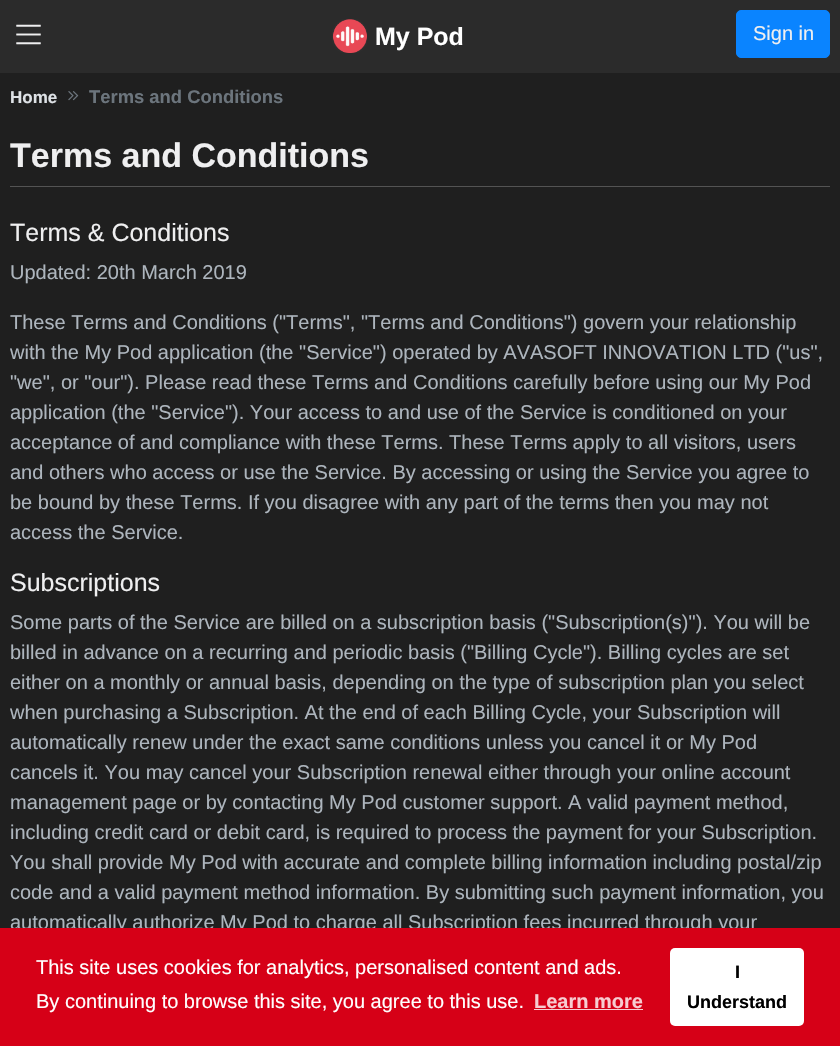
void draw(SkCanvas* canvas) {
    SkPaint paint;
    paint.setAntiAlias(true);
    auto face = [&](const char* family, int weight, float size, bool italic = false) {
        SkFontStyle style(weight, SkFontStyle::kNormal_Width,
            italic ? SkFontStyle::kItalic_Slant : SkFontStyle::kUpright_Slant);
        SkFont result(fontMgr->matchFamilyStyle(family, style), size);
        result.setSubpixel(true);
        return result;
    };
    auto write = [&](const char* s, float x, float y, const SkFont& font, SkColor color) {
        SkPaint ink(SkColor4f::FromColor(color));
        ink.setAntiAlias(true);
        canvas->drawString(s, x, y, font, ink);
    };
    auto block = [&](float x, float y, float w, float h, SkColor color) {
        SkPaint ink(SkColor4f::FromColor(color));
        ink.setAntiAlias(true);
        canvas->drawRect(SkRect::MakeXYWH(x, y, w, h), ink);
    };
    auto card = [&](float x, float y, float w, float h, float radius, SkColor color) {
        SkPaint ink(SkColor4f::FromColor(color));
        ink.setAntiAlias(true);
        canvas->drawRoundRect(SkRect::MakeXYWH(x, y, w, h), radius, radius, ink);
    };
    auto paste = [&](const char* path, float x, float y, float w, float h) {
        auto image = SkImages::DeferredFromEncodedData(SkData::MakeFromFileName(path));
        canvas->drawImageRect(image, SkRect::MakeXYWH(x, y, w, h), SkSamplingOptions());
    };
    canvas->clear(SkColorSetRGB(31, 31, 31));
    block(0, 0, 840, 73, SkColorSetRGB(43, 43, 43));
    paste("pic1.png", 16, 24, 25, 21);
    paste("pic2.png", 332, 19, 35, 34);
    auto kFont1 = face("Liberation Sans", 700, 25);
    write("My Pod", 375, 45, kFont1, SK_ColorWHITE);
    paint.setColor(SkColorSetRGB(10, 132, 255));
    canvas->drawRoundRect(SkRect::MakeXYWH(736.5f, 10.5f, 93, 47), 4.5f, 4.5f, paint);
    paint.setStyle(SkPaint::kStroke_Style);
    paint.setStrokeWidth(1);
    canvas->drawRoundRect(SkRect::MakeXYWH(736.5f, 10.5f, 93, 47), 4.5f, 4.5f, paint);
    auto kFont2 = face("Liberation Sans", 400, 20);
    write("Sign in", 753, 40, kFont2, SkColorSetRGB(239, 239, 240));
    auto kFont3 = face("Liberation Sans", 700, 17);
    write("Home", 10, 103, kFont3, SkColorSetRGB(222, 226, 230));
    paste("pic3.png", 68, 91, 11, 10);
    auto kFont4 = face("Liberation Sans", 700, 18.4f);
    write("Terms and Conditions", 89, 103, kFont4, SkColorSetRGB(108, 117, 125));
    auto kFont5 = face("Liberation Sans", 700, 34);
    write("Terms and Conditions", 10, 167, kFont5, SkColorSetRGB(239, 239, 240));
    block(10, 186, 820, 1, SkColorSetRGB(83, 83, 83));
    auto kFont6 = face("Liberation Sans", 400, 25);
    write("Terms & Conditions", 10, 241, kFont6, SkColorSetRGB(239, 239, 240));
    write("Updated: 20th March 2019", 10, 279, kFont2, SkColorSetRGB(173, 181, 189));
    write("These Terms and Conditions (\"Terms\", \"Terms and Conditions\") govern your relationship", 10, 329, kFont2, SkColorSetRGB(173, 181, 189));
    write("with the My Pod application (the \"Service\") operated by AVASOFT INNOVATION LTD (\"us\",", 10, 359, kFont2, SkColorSetRGB(173, 181, 189));
    write("\"we\", or \"our\"). Please read these Terms and Conditions carefully before using our My Pod", 10, 389, kFont2, SkColorSetRGB(173, 181, 189));
    write("application (the \"Service\"). Your access to and use of the Service is conditioned on your", 10, 419, kFont2, SkColorSetRGB(173, 181, 189));
    write("acceptance of and compliance with these Terms. These Terms apply to all visitors, users", 10, 449, kFont2, SkColorSetRGB(173, 181, 189));
    write("and others who access or use the Service. By accessing or using the Service you agree to", 10, 479, kFont2, SkColorSetRGB(173, 181, 189));
    write("be bound by these Terms. If you disagree with any part of the terms then you may not", 10, 509, kFont2, SkColorSetRGB(173, 181, 189));
    write("access the Service.", 10, 539, kFont2, SkColorSetRGB(173, 181, 189));
    write("Subscriptions", 10, 591, kFont6, SkColorSetRGB(239, 239, 240));
    write("Some parts of the Service are billed on a subscription basis (\"Subscription(s)\"). You will be", 10, 629, kFont2, SkColorSetRGB(173, 181, 189));
    write("billed in advance on a recurring and periodic basis (\"Billing Cycle\"). Billing cycles are set", 10, 659, kFont2, SkColorSetRGB(173, 181, 189));
    write("either on a monthly or annual basis, depending on the type of subscription plan you select", 10, 689, kFont2, SkColorSetRGB(173, 181, 189));
    write("when purchasing a Subscription. At the end of each Billing Cycle, your Subscription will", 10, 719, kFont2, SkColorSetRGB(173, 181, 189));
    write("automatically renew under the exact same conditions unless you cancel it or My Pod", 10, 749, kFont2, SkColorSetRGB(173, 181, 189));
    write("cancels it. You may cancel your Subscription renewal either through your online account", 10, 779, kFont2, SkColorSetRGB(173, 181, 189));
    write("management page or by contacting My Pod customer support. A valid payment method,", 10, 809, kFont2, SkColorSetRGB(173, 181, 189));
    write("including credit card or debit card, is required to process the payment for your Subscription.", 10, 839, kFont2, SkColorSetRGB(173, 181, 189));
    write("You shall provide My Pod with accurate and complete billing information including postal/zip", 10, 869, kFont2, SkColorSetRGB(173, 181, 189));
    write("code and a valid payment method information. By submitting such payment information, you", 10, 899, kFont2, SkColorSetRGB(173, 181, 189));
    write("automatically authorize My Pod to charge all Subscription fees incurred through your", 10, 929, kFont2, SkColorSetRGB(173, 181, 189));
    block(0, 928, 840, 118, SkColorSetRGB(214, 0, 23));
    write("This site uses cookies for analytics, personalised content and ads.", 36, 974, kFont2, SK_ColorWHITE);
    write("By continuing to browse this site, you agree to this use.", 36, 1008, kFont2, SK_ColorWHITE);
    auto kFont7 = face("Liberation Sans", 700, 20);
    write("Learn more", 534, 1008, kFont7, SkColorSetRGB(247, 204, 209));
    block(534, 1009, 109, 1, SkColorSetRGB(247, 204, 209));
    card(670, 948, 134, 78, 5, SK_ColorWHITE);
    auto kFont8 = face("Liberation Sans", 700, 18);
    write("I", 735, 978, kFont8, SK_ColorBLACK);
    write("Understand", 687, 1008, kFont8, SK_ColorBLACK);
}
